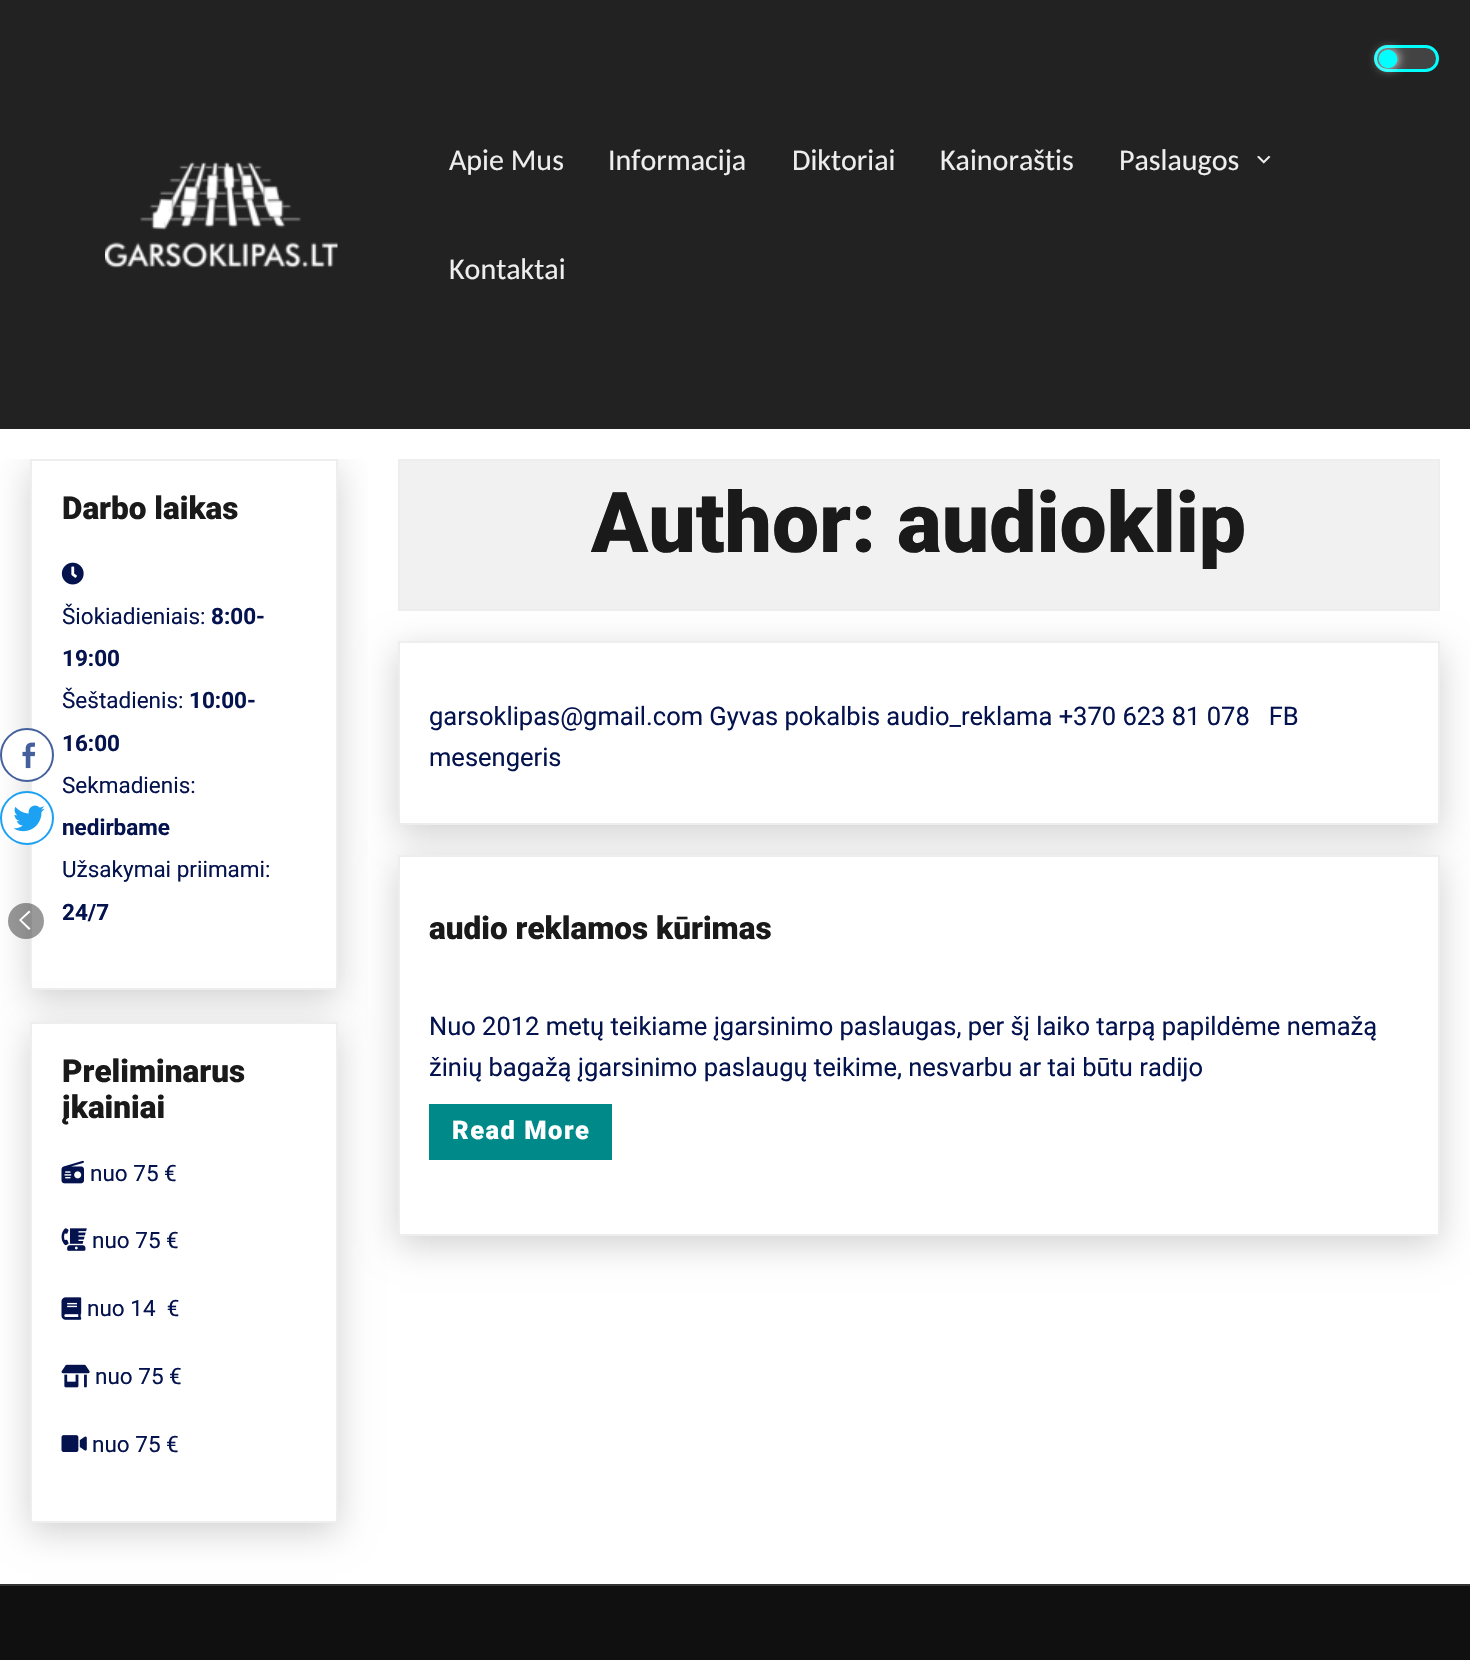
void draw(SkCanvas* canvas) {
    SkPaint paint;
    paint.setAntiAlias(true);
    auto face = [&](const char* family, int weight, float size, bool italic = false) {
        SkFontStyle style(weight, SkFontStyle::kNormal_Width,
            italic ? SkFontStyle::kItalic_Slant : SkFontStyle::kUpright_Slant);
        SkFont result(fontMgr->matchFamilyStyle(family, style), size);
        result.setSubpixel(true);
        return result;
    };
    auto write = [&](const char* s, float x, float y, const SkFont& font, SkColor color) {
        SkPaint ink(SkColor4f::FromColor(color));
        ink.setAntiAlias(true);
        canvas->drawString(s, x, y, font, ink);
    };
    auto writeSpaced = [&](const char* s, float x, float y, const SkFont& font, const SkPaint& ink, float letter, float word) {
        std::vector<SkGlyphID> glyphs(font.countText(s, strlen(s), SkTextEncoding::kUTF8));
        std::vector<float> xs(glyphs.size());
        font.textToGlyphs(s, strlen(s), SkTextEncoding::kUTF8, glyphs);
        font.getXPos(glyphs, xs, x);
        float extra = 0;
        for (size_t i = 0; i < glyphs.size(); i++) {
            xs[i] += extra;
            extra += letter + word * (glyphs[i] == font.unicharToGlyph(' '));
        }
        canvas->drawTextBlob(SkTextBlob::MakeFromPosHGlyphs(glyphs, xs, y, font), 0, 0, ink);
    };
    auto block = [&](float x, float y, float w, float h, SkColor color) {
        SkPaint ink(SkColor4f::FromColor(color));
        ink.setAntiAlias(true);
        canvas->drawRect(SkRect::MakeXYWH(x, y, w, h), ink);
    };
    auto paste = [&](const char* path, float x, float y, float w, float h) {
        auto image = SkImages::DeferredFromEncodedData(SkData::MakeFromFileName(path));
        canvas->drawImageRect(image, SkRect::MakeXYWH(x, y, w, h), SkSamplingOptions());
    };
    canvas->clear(SK_ColorWHITE);
    canvas->save();
    canvas->clipRect(SkRect::MakeXYWH(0, 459, 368, 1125));
    paint.setColor(SkColorSetARGB(46, 0, 0, 0));
    paint.setMaskFilter(SkMaskFilter::MakeBlur(kNormal_SkBlurStyle, 16.5f));
    canvas->drawRect(SkRect::MakeXYWH(30, 468, 308, 531), paint);
    paint.setMaskFilter(nullptr);
    canvas->restore();
    block(0, 0, 1470, 429, SkColorSetRGB(34, 34, 34));
    paint.setColor(SkColorSetRGB(67, 67, 67));
    canvas->drawRoundRect(SkRect::MakeXYWH(1375.5f, 46.5f, 62, 24), 12, 12, paint);
    paint.setStyle(SkPaint::kStroke_Style);
    paint.setStrokeWidth(3);
    paint.setColor(SkColorSetRGB(0, 255, 255));
    canvas->drawRoundRect(SkRect::MakeXYWH(1375.5f, 46.5f, 62, 24), 12, 12, paint);
    paint.setStyle(SkPaint::kFill_Style);
    paint.setColor(SK_ColorWHITE);
    paint.setMaskFilter(SkMaskFilter::MakeBlur(kNormal_SkBlurStyle, 5.5f));
    canvas->drawRoundRect(SkRect::MakeXYWH(1379, 50, 19, 18), 9, 9, paint);
    paint.setMaskFilter(nullptr);
    paint.setColor(SkColorSetRGB(0, 255, 255));
    canvas->drawPath(SkPathBuilder().moveTo(1381.5f, 52.5f).cubicTo(1390.5f, 44, 1403, 57, 1394.5f, 65.5f).cubicTo(1386, 74, 1373, 61, 1381.5f, 52.5f).close().detach(), paint);
    paste("pic1.png", 105, 161, 233, 107);
    auto kFont1 = face("Carlito", 400, 30);
    write("Apie Mus", 449, 170, kFont1, SkColorSetRGB(238, 238, 238));
    write("Informacija", 608, 170, kFont1, SkColorSetRGB(238, 238, 238));
    write("Diktoriai", 792, 170, kFont1, SkColorSetRGB(238, 238, 238));
    write("Kainoraštis", 940, 170, kFont1, SkColorSetRGB(238, 238, 238));
    write("Paslaugos", 1119, 170, kFont1, SkColorSetRGB(238, 238, 238));
    paste("pic2.png", 1257, 155, 14, 9);
    write("Kontaktai", 449, 279, kFont1, SkColorSetRGB(238, 238, 238));
    paint.setColor(SK_ColorWHITE);
    canvas->drawRect(SkRect::MakeXYWH(31, 460, 306, 529), paint);
    paint.setStyle(SkPaint::kStroke_Style);
    paint.setStrokeWidth(2);
    paint.setColor(SkColorSetRGB(238, 238, 238));
    canvas->drawRect(SkRect::MakeXYWH(31, 460, 306, 529), paint);
    paint.setStyle(SkPaint::kFill_Style);
    paint.setColor(SK_ColorWHITE);
    canvas->drawCircle(27, 755, 26, paint);
    paint.setStyle(SkPaint::kStroke_Style);
    paint.setColor(SkColorSetRGB(67, 96, 156));
    canvas->drawCircle(27, 755, 26, paint);
    paste("pic3.png", 22, 742, 14, 27);
    paint.setStyle(SkPaint::kFill_Style);
    paint.setColor(SK_ColorWHITE);
    canvas->drawCircle(27, 818, 26, paint);
    paint.setStyle(SkPaint::kStroke_Style);
    paint.setColor(SkColorSetRGB(29, 161, 242));
    canvas->drawCircle(27, 818, 26, paint);
    paste("pic4.png", 13, 805, 32, 27);
    paint.setStyle(SkPaint::kFill_Style);
    paint.setColor(SkColorSetARGB(102, 0, 0, 0));
    canvas->drawCircle(26, 921, 18, paint);
    paint.setColor(SK_ColorWHITE);
    canvas->drawPath(SkPathBuilder().moveTo(30.5f, 912).lineTo(29, 910.5f).lineTo(19, 920).lineTo(29, 930).lineTo(30.5f, 928.5f).lineTo(21.5f, 920).detach(), paint);
    auto kFont2 = face("Roboto", 900, 31.5f);
    write("Darbo laikas", 62, 519, kFont2, SkColorSetRGB(26, 26, 26));
    paste("pic5.png", 61, 562, 23, 23);
    auto kFont3 = face("Roboto", 400, 22.5f);
    write("Šiokiadieniais:", 62, 624, kFont3, SkColorSetRGB(4, 19, 78));
    auto kFont4 = face("Roboto", 700, 22.5f);
    write("8:00-", 211, 624, kFont4, SkColorSetRGB(4, 19, 78));
    write("19:00", 62, 666, kFont4, SkColorSetRGB(4, 19, 78));
    write("Šeštadienis:", 62, 708, kFont3, SkColorSetRGB(4, 19, 78));
    write("10:00-", 189, 708, kFont4, SkColorSetRGB(4, 19, 78));
    write("16:00", 62, 751, kFont4, SkColorSetRGB(4, 19, 78));
    write("Sekmadienis:", 62, 793, kFont3, SkColorSetRGB(4, 19, 78));
    write("nedirbame", 62, 835, kFont4, SkColorSetRGB(4, 19, 78));
    write("Užsakymai priimami:", 62, 877, kFont3, SkColorSetRGB(4, 19, 78));
    write("24/7", 62, 920, kFont4, SkColorSetRGB(4, 19, 78));
    paint.setColor(SkColorSetARGB(46, 0, 0, 0));
    paint.setMaskFilter(SkMaskFilter::MakeBlur(kNormal_SkBlurStyle, 16.5f));
    canvas->drawRect(SkRect::MakeXYWH(30, 1031, 308, 501), paint);
    paint.setMaskFilter(nullptr);
    paint.setColor(SK_ColorWHITE);
    canvas->drawRect(SkRect::MakeXYWH(31, 1023, 306, 499), paint);
    paint.setStyle(SkPaint::kStroke_Style);
    paint.setColor(SkColorSetRGB(238, 238, 238));
    canvas->drawRect(SkRect::MakeXYWH(31, 1023, 306, 499), paint);
    write("Preliminarus", 62, 1082, kFont2, SkColorSetRGB(26, 26, 26));
    write("įkainiai", 62, 1118, kFont2, SkColorSetRGB(26, 26, 26));
    paste("pic6.png", 61, 1160, 23, 24);
    write("nuo 75 €", 90, 1181, kFont3, SkColorSetRGB(4, 19, 78));
    paste("pic7.png", 61, 1228, 26, 23);
    write("nuo 75 €", 92, 1248, kFont3, SkColorSetRGB(4, 19, 78));
    paste("pic8.png", 61, 1297, 21, 23);
    write("nuo 14  €", 87, 1316, kFont3, SkColorSetRGB(4, 19, 78));
    paste("pic9.png", 61, 1364, 29, 24);
    write("nuo 75 €", 95, 1384, kFont3, SkColorSetRGB(4, 19, 78));
    paste("pic10.png", 61, 1435, 26, 17);
    write("nuo 75 €", 92, 1452, kFont3, SkColorSetRGB(4, 19, 78));
    paint.setStyle(SkPaint::kFill_Style);
    paint.setColor(SkColorSetRGB(241, 241, 241));
    canvas->drawRect(SkRect::MakeXYWH(399, 460, 1040, 150), paint);
    paint.setStyle(SkPaint::kStroke_Style);
    paint.setColor(SkColorSetRGB(238, 238, 238));
    canvas->drawRect(SkRect::MakeXYWH(399, 460, 1040, 150), paint);
    auto kFont5 = face("Roboto", 900, 84);
    write("Author: audioklip", 591, 552, kFont5, SkColorSetRGB(26, 26, 26));
    canvas->save();
    canvas->clipPath(SkPathBuilder(SkPathFillType::kEvenOdd).moveTo(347, 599).lineTo(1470, 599).lineTo(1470, 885).lineTo(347, 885).close().moveTo(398, 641).lineTo(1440, 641).lineTo(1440, 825).lineTo(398, 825).close().detach(), true);
    paint.setStyle(SkPaint::kFill_Style);
    paint.setColor(SkColorSetARGB(46, 0, 0, 0));
    paint.setMaskFilter(SkMaskFilter::MakeBlur(kNormal_SkBlurStyle, 16.5f));
    canvas->drawRect(SkRect::MakeXYWH(398, 650, 1042, 184), paint);
    paint.setMaskFilter(nullptr);
    canvas->restore();
    paint.setStyle(SkPaint::kStroke_Style);
    paint.setColor(SkColorSetRGB(238, 238, 238));
    canvas->drawRect(SkRect::MakeXYWH(399, 642, 1040, 182), paint);
    auto kFont6 = face("Roboto", 400, 25.5f);
    write("garsoklipas@gmail.com Gyvas pokalbis audio_reklama +370 623 81 078   FB", 429, 725, kFont6, SkColorSetRGB(4, 19, 78));
    write("mesengeris", 429, 766, kFont6, SkColorSetRGB(4, 19, 78));
    paint.setStyle(SkPaint::kFill_Style);
    paint.setColor(SkColorSetARGB(46, 0, 0, 0));
    paint.setMaskFilter(SkMaskFilter::MakeBlur(kNormal_SkBlurStyle, 16.5f));
    canvas->drawRect(SkRect::MakeXYWH(398, 864, 1042, 381), paint);
    paint.setMaskFilter(nullptr);
    paint.setColor(SK_ColorWHITE);
    canvas->drawRect(SkRect::MakeXYWH(399, 856, 1040, 379), paint);
    paint.setStyle(SkPaint::kStroke_Style);
    paint.setColor(SkColorSetRGB(238, 238, 238));
    canvas->drawRect(SkRect::MakeXYWH(399, 856, 1040, 379), paint);
    write("audio reklamos kūrimas", 429, 939, kFont2, SkColorSetRGB(26, 26, 26));
    write("Nuo 2012 metų teikiame įgarsinimo paslaugas, per šį laiko tarpą papildėme nemažą", 429, 1035, kFont6, SkColorSetRGB(4, 19, 78));
    write("žinių bagažą įgarsinimo paslaugų teikime, nesvarbu ar tai būtu radijo", 429, 1076, kFont6, SkColorSetRGB(4, 19, 78));
    block(429, 1104, 183, 56, SkColorSetRGB(0, 137, 137));
    auto kFont7 = face("Roboto", 900, 25.5f);
    paint.setStyle(SkPaint::kFill_Style);
    paint.setColor(SK_ColorWHITE);
    writeSpaced("Read More", 452, 1139, kFont7, paint, 1.5f, 0);
    block(0, 1586, 1470, 74, SkColorSetRGB(16, 16, 16));
    block(0, 1584, 1470, 2, SkColorSetRGB(51, 51, 51));
}
